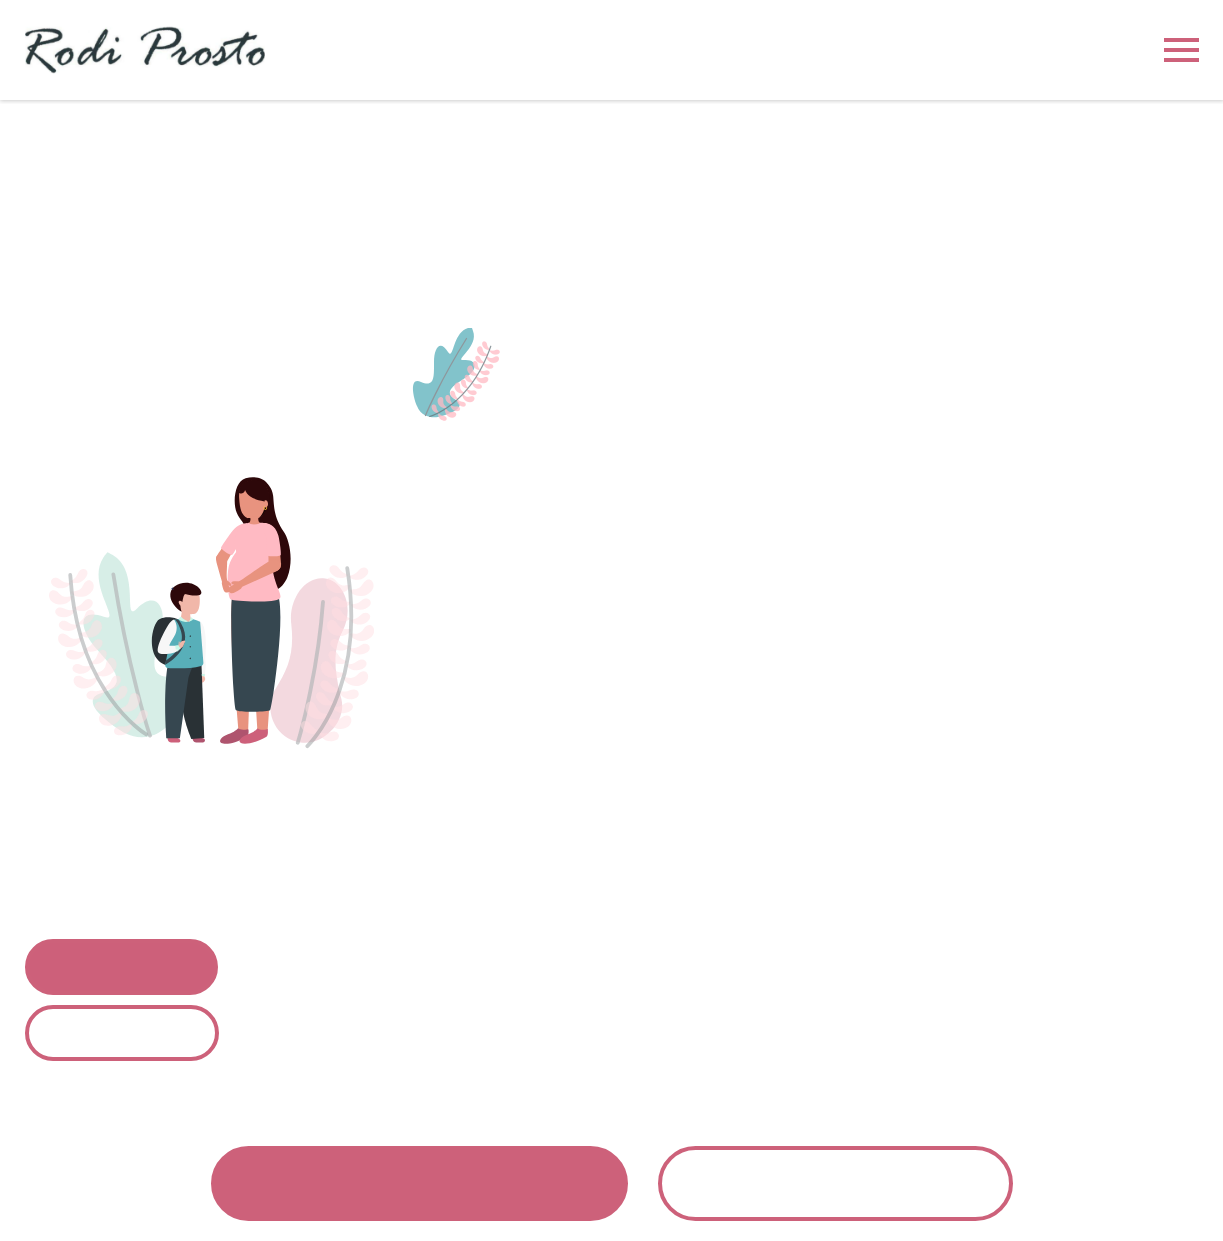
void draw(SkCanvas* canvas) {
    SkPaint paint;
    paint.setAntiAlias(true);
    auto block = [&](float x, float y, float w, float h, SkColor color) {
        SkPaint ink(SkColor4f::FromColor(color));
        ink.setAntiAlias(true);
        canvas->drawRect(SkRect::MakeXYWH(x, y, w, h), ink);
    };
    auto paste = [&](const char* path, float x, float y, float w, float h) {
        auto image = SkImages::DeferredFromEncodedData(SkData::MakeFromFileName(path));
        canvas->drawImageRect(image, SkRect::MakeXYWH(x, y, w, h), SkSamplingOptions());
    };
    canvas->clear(SK_ColorWHITE);
    canvas->save();
    canvas->clipRect(SkRect::MakeXYWH(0, 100, 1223, 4));
    paint.setColor(SkColorSetARGB(51, 0, 0, 0));
    paint.setMaskFilter(SkMaskFilter::MakeBlur(kNormal_SkBlurStyle, 2));
    canvas->drawRect(SkRect::MakeXYWH(0, 1, 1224, 100), paint);
    paint.setMaskFilter(nullptr);
    canvas->restore();
    paste("pic1.png", 25, 26, 240, 48);
    block(1164, 38, 35, 4, SkColorSetRGB(205, 97, 122));
    block(1164, 48, 35, 4, SkColorSetRGB(205, 97, 122));
    block(1164, 58, 35, 4, SkColorSetRGB(205, 97, 122));
    paint.setColor(SkColorSetRGB(130, 195, 203));
    canvas->drawPath(SkPathBuilder().moveTo(473, 331).cubicTo(479, 347, 453, 361, 464, 360).cubicTo(479, 359, 477, 371, 465, 378).cubicTo(453, 386, 443, 392, 456, 400).cubicTo(469, 408, 444, 416, 438, 417).cubicTo(432, 418, 421, 417, 417, 406).cubicTo(414, 400, 408, 376, 421, 382).cubicTo(435, 388, 434, 376, 434, 362).cubicTo(434, 348, 440, 339, 448, 352).cubicTo(454, 361, 452, 333, 468, 328).lineTo(472, 328).close().detach(), paint);
    paint.setStyle(SkPaint::kStroke_Style);
    paint.setStrokeWidth(1.3f);
    paint.setStrokeCap(SkPaint::kRound_Cap);
    paint.setStrokeJoin(SkPaint::kRound_Join);
    paint.setColor(SkColorSetRGB(141, 151, 156));
    canvas->drawPath(SkPathBuilder().moveTo(425.5f, 415.5f).cubicTo(425.5f, 415.5f, 438.5f, 383.5f, 466.5f, 338.5f).detach(), paint);
    paste("pic2.png", 429, 341, 71, 80);
    paste("pic3.png", 49, 477, 325, 272);
    paint.setStyle(SkPaint::kFill_Style);
    paint.setColor(SkColorSetRGB(205, 96, 122));
    canvas->drawRoundRect(SkRect::MakeXYWH(27, 941, 189, 52), 26, 26, paint);
    paint.setStyle(SkPaint::kStroke_Style);
    paint.setStrokeWidth(4);
    paint.setStrokeCap(SkPaint::kButt_Cap);
    paint.setStrokeJoin(SkPaint::kMiter_Join);
    paint.setColor(SkColorSetRGB(205, 97, 122));
    canvas->drawRoundRect(SkRect::MakeXYWH(27, 941, 189, 52), 26, 26, paint);
    canvas->drawRoundRect(SkRect::MakeXYWH(27, 1007, 190, 52), 26, 26, paint);
    paint.setStyle(SkPaint::kFill_Style);
    canvas->drawRoundRect(SkRect::MakeXYWH(213, 1148, 413, 71), 35.5f, 35.5f, paint);
    paint.setStyle(SkPaint::kStroke_Style);
    canvas->drawRoundRect(SkRect::MakeXYWH(213, 1148, 413, 71), 35.5f, 35.5f, paint);
    canvas->drawRoundRect(SkRect::MakeXYWH(660, 1148, 351, 71), 35.5f, 35.5f, paint);
}
